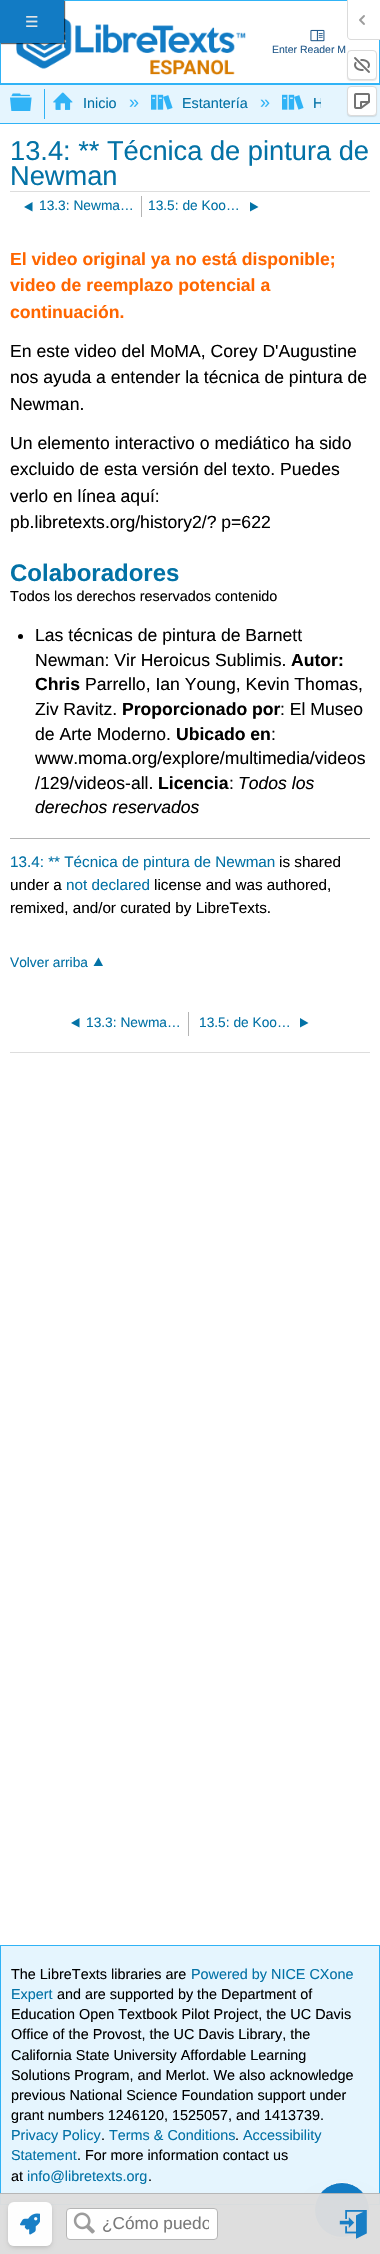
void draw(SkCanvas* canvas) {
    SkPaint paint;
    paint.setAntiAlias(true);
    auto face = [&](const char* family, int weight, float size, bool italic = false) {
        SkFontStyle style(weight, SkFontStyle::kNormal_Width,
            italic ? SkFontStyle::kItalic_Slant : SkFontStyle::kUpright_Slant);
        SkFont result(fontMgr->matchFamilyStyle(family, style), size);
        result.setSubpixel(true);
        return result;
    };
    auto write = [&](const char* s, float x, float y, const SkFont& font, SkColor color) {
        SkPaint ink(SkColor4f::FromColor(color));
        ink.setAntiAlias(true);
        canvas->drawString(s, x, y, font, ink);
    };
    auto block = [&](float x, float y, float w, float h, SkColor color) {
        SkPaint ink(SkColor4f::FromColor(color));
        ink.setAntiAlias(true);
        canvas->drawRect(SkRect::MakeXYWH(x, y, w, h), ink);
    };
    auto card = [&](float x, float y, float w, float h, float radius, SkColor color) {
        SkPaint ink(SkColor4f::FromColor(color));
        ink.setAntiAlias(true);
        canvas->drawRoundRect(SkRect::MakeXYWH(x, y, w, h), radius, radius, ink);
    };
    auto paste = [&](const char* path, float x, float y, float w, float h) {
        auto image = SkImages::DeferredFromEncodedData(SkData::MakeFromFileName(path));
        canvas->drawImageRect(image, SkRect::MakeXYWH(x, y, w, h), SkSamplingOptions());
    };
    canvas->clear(SK_ColorWHITE);
    paint.setStyle(SkPaint::kStroke_Style);
    paint.setStrokeWidth(1);
    paint.setColor(SkColorSetRGB(48, 179, 246));
    canvas->drawRect(SkRect::MakeXYWH(0.5f, 0.5f, 379, 83), paint);
    paste("pic4.png", 16, 18, 230, 57);
    paint.setStyle(SkPaint::kFill_Style);
    paint.setColor(SkColorSetARGB(153, 0, 0, 0));
    paint.setMaskFilter(SkMaskFilter::MakeBlur(kNormal_SkBlurStyle, 0.5f));
    canvas->drawRect(SkRect::MakeXYWH(1, 1, 64, 43), paint);
    paint.setMaskFilter(nullptr);
    block(0, 0, 64, 43, SkColorSetRGB(18, 123, 196));
    auto kFont1 = face("DejaVu Sans", 400, 15);
    write("☰", 25, 27, kFont1, SkColorSetRGB(229, 229, 229));
    paint.setColor(SK_ColorWHITE);
    canvas->drawPath(SkPathBuilder().moveTo(348, 0).lineTo(380, 0).lineTo(380, 39).lineTo(351, 39).cubicTo(349.5f, 39, 348, 37.5f, 348, 36).close().detach(), paint);
    paint.setColor(SkColorSetRGB(219, 219, 219));
    canvas->drawPath(SkPathBuilder(SkPathFillType::kEvenOdd).moveTo(347, 0).lineTo(380, 0).lineTo(380, 40).lineTo(351, 40).cubicTo(349, 40, 347, 38, 347, 36).close().moveTo(348, 0).lineTo(380, 0).lineTo(380, 39).lineTo(351, 39).cubicTo(349, 39, 348, 38, 348, 36).close().detach(), paint);
    paste("pic1.png", 359, 15, 6, 10);
    paint.setColor(SkColorSetARGB(26, 0, 0, 0));
    paint.setMaskFilter(SkMaskFilter::MakeBlur(kNormal_SkBlurStyle, 0.5f));
    canvas->drawRoundRect(SkRect::MakeXYWH(347, 51, 30, 30), 4, 4, paint);
    paint.setMaskFilter(nullptr);
    paint.setColor(SK_ColorWHITE);
    canvas->drawRoundRect(SkRect::MakeXYWH(347.5f, 50.5f, 29, 29), 3.5f, 3.5f, paint);
    paint.setStyle(SkPaint::kStroke_Style);
    paint.setColor(SkColorSetRGB(219, 219, 219));
    canvas->drawRoundRect(SkRect::MakeXYWH(347.5f, 50.5f, 29, 29), 3.5f, 3.5f, paint);
    paste("pic2.png", 354, 57, 16, 16);
    block(0, 85, 380, 38, SkColorSetRGB(229, 245, 254));
    block(0, 84, 380, 1, SkColorSetRGB(48, 179, 246));
    paint.setStyle(SkPaint::kFill_Style);
    paint.setColor(SkColorSetARGB(26, 0, 0, 0));
    paint.setMaskFilter(SkMaskFilter::MakeBlur(kNormal_SkBlurStyle, 0.5f));
    canvas->drawRoundRect(SkRect::MakeXYWH(347, 87, 30, 30), 4, 4, paint);
    paint.setMaskFilter(nullptr);
    paint.setColor(SK_ColorWHITE);
    canvas->drawRoundRect(SkRect::MakeXYWH(347.5f, 86.5f, 29, 29), 3.5f, 3.5f, paint);
    paint.setStyle(SkPaint::kStroke_Style);
    paint.setColor(SkColorSetRGB(219, 219, 219));
    canvas->drawRoundRect(SkRect::MakeXYWH(347.5f, 86.5f, 29, 29), 3.5f, 3.5f, paint);
    paste("pic3.png", 354, 93, 16, 16);
    paste("pic5.png", 310, 29, 15, 13);
    auto kFont2 = face("Liberation Sans", 400, 10.5f);
    write("Enter Reader M", 272, 53, kFont2, SkColorSetRGB(35, 90, 139));
    block(0, 123, 380, 1, SkColorSetRGB(48, 179, 246));
    paste("pic6.png", 10, 93, 22, 18);
    block(44, 89, 1, 30, SkColorSetRGB(48, 179, 246));
    paste("pic7.png", 53, 92, 20, 18);
    auto kFont3 = face("Liberation Sans", 400, 14.4f);
    write("Inicio", 83, 108, kFont3, SkColorSetRGB(3, 114, 166));
    auto kFont4 = face("Liberation Sans", 400, 18);
    write("»", 129, 108, kFont4, SkColorSetRGB(48, 179, 246));
    paste("pic8.png", 151, 94, 22, 16);
    write("Estantería", 182, 108, kFont3, SkColorSetRGB(3, 114, 166));
    write("»", 260, 108, kFont4, SkColorSetRGB(48, 179, 246));
    paste("pic8.png", 282, 94, 22, 16);
    canvas->save();
    canvas->clipRect(SkRect::MakeXYWH(45, 89, 276, 30));
    write("H", 313, 108, kFont3, SkColorSetRGB(3, 114, 166));
    canvas->restore();
    paint.setStyle(SkPaint::kFill_Style);
    paint.setColor(SkColorSetRGB(229, 245, 254));
    canvas->drawRect(SkRect::MakeXYWH(0.5f, 1945.5f, 379, 259), paint);
    paint.setStyle(SkPaint::kStroke_Style);
    paint.setColor(SkColorSetRGB(48, 179, 246));
    canvas->drawRect(SkRect::MakeXYWH(0.5f, 1945.5f, 379, 259), paint);
    paint.setStyle(SkPaint::kFill_Style);
    paint.setColor(SkColorSetARGB(26, 0, 0, 0));
    paint.setMaskFilter(SkMaskFilter::MakeBlur(kNormal_SkBlurStyle, 5));
    canvas->drawRoundRect(SkRect::MakeXYWH(320, 2196, 44, 44), 22, 22, paint);
    paint.setMaskFilter(nullptr);
    paint.setMaskFilter(SkMaskFilter::MakeBlur(kNormal_SkBlurStyle, 12.5f));
    canvas->drawRoundRect(SkRect::MakeXYWH(319, 2207, 46, 46), 23, 23, paint);
    paint.setMaskFilter(nullptr);
    paint.setColor(SkColorSetRGB(18, 123, 196));
    canvas->drawCircle(342, 2210, 27.5f, paint);
    paint.setStyle(SkPaint::kStroke_Style);
    paint.setColor(SK_ColorWHITE);
    canvas->drawCircle(342, 2210, 27.5f, paint);
    block(0, 2194, 380, 60, SkColorSetARGB(247, 221, 221, 221));
    block(0, 2193, 380, 1, SkColorSetARGB(247, 180, 180, 180));
    canvas->save();
    canvas->clipPath(SkPathBuilder(SkPathFillType::kEvenOdd).moveTo(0, 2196).lineTo(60, 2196).lineTo(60, 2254).lineTo(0, 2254).close().moveTo(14, 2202).lineTo(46, 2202).cubicTo(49.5f, 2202, 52, 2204.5f, 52, 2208).lineTo(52, 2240).cubicTo(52, 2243.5f, 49.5f, 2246, 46, 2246).lineTo(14, 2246).cubicTo(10.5f, 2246, 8, 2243.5f, 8, 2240).lineTo(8, 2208).cubicTo(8, 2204.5f, 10.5f, 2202, 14, 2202).close().detach(), true);
    paint.setStyle(SkPaint::kFill_Style);
    paint.setColor(SkColorSetARGB(48, 0, 0, 0));
    paint.setMaskFilter(SkMaskFilter::MakeBlur(kNormal_SkBlurStyle, 2.5f));
    canvas->drawRoundRect(SkRect::MakeXYWH(9, 2205, 42, 42), 5, 5, paint);
    paint.setMaskFilter(nullptr);
    canvas->restore();
    card(8, 2202, 44, 44, 6, SkColorSetARGB(247, 255, 255, 255));
    paste("pic9.png", 20, 2213, 20, 22);
    paint.setColor(SK_ColorWHITE);
    canvas->drawRoundRect(SkRect::MakeXYWH(66.5f, 2208.5f, 151, 31), 3.5f, 3.5f, paint);
    paint.setStyle(SkPaint::kStroke_Style);
    paint.setColor(SkColorSetRGB(182, 182, 182));
    canvas->drawRoundRect(SkRect::MakeXYWH(66.5f, 2208.5f, 151, 31), 3.5f, 3.5f, paint);
    paste("pic10.png", 73, 2212, 22, 22);
    canvas->save();
    canvas->clipRect(SkRect::MakeXYWH(93, 2213, 116, 21));
    auto kFont5 = face("Liberation Sans", 400, 17.25f);
    write("¿Cómo puedo", 102, 2229, kFont5, SkColorSetRGB(121, 121, 121));
    canvas->restore();
    paste("pic11.png", 339, 2210, 28, 29);
    block(10, 191, 360, 1, SkColorSetRGB(221, 221, 221));
    auto kFont6 = face("Liberation Sans", 400, 27.25f);
    write("13.4: ** Técnica de pintura de", 10, 160, kFont6, SkColorSetRGB(3, 114, 166));
    write("Newman", 10, 185, kFont6, SkColorSetRGB(3, 114, 166));
    block(141, 196, 1, 21, SkColorSetRGB(180, 180, 180));
    paint.setStyle(SkPaint::kFill_Style);
    paint.setColor(SkColorSetRGB(3, 114, 166));
    canvas->drawPath(SkPathBuilder().moveTo(32.5f, 202).lineTo(32.5f, 211.5f).lineTo(24, 207).close().detach(), paint);
    auto kFont7 = face("Liberation Sans", 400, 13.75f);
    write("13.3: Newma…", 39, 210, kFont7, SkColorSetRGB(3, 114, 166));
    write("13.5: de Koo…", 148, 210, kFont7, SkColorSetRGB(3, 114, 166));
    canvas->drawPath(SkPathBuilder().moveTo(250, 202).lineTo(250, 211.5f).lineTo(258.5f, 207).close().detach(), paint);
    auto kFont8 = face("Liberation Sans", 700, 17.6f);
    write("El video original ya no está disponible;", 10, 265, kFont8, SkColorSetRGB(255, 102, 0));
    write("video de reemplazo potencial a", 10, 291, kFont8, SkColorSetRGB(255, 102, 0));
    write("continuación.", 10, 318, kFont8, SkColorSetRGB(255, 102, 0));
    auto kFont9 = face("Liberation Sans", 400, 17.6f);
    write("En este video del MoMA, Corey D'Augustine", 10, 357, kFont9, SK_ColorBLACK);
    write("nos ayuda a entender la técnica de pintura de", 10, 383, kFont9, SK_ColorBLACK);
    write("Newman.", 10, 410, kFont9, SK_ColorBLACK);
    write("Un elemento interactivo o mediático ha sido", 10, 449, kFont9, SK_ColorBLACK);
    write("excluido de esta versión del texto. Puedes", 10, 475, kFont9, SK_ColorBLACK);
    write("verlo en línea aquí:", 10, 502, kFont9, SK_ColorBLACK);
    write("pb.libretexts.org/history2/? p=622", 10, 528, kFont9, SK_ColorBLACK);
    auto kFont10 = face("Liberation Sans", 700, 24);
    write("Colaboradores", 10, 581, kFont10, SkColorSetRGB(3, 114, 166));
    write("Todos los derechos reservados contenido", 10, 601, kFont3, SK_ColorBLACK);
    paint.setColor(SK_ColorBLACK);
    canvas->drawCircle(20.5f, 636.5f, 2.5f, paint);
    write("Las técnicas de pintura de Barnett", 35, 641, kFont9, SK_ColorBLACK);
    write("Newman: Vir Heroicus Sublimis.", 35, 666, kFont9, SK_ColorBLACK);
    write("Autor:", 291, 666, kFont8, SK_ColorBLACK);
    write("Chris", 35, 690, kFont8, SK_ColorBLACK);
    write("Parrello, Ian Young, Kevin Thomas,", 85, 690, kFont9, SK_ColorBLACK);
    write("Ziv Ravitz.", 35, 715, kFont9, SK_ColorBLACK);
    write("Proporcionado por", 122, 715, kFont8, SK_ColorBLACK);
    write(": El Museo", 280, 715, kFont9, SK_ColorBLACK);
    write("de Arte Moderno.", 35, 740, kFont9, SK_ColorBLACK);
    write("Ubicado en", 176, 740, kFont8, SK_ColorBLACK);
    write(":", 271, 740, kFont9, SK_ColorBLACK);
    write("www.moma.org/explore/multimedia/videos", 35, 764, kFont9, SK_ColorBLACK);
    write("/129/videos-all.", 35, 789, kFont9, SK_ColorBLACK);
    write("Licencia", 158, 789, kFont8, SK_ColorBLACK);
    write(":", 229, 789, kFont9, SK_ColorBLACK);
    auto kFont11 = face("Liberation Sans", 400, 17.6f, true);
    write("Todos los", 238, 789, kFont11, SK_ColorBLACK);
    write("derechos reservados", 35, 813, kFont11, SK_ColorBLACK);
    block(10, 838, 360, 1, SkColorSetRGB(180, 180, 180));
    auto kFont12 = face("Liberation Sans", 400, 15.25f);
    write("13.4: ** Técnica de pintura de Newman", 10, 867, kFont12, SkColorSetRGB(3, 114, 166));
    write("is shared", 279, 867, kFont12, SK_ColorBLACK);
    write("under a", 10, 890, kFont12, SK_ColorBLACK);
    write("not declared", 66, 890, kFont12, SkColorSetRGB(3, 114, 166));
    write("license and was authored,", 154, 890, kFont12, SK_ColorBLACK);
    write("remixed, and/or curated by LibreTexts.", 10, 913, kFont12, SK_ColorBLACK);
    block(10, 1052, 360, 1, SkColorSetRGB(221, 221, 221));
    write("Volver arriba", 10, 967, kFont7, SkColorSetRGB(3, 114, 166));
    paint.setColor(SkColorSetRGB(3, 114, 166));
    canvas->drawPath(SkPathBuilder().moveTo(93.5f, 966).lineTo(103, 966).lineTo(98.5f, 957.5f).close().detach(), paint);
    block(188, 1012, 1, 24, SkColorSetRGB(180, 180, 180));
    canvas->drawPath(SkPathBuilder().moveTo(79.5f, 1018).lineTo(79.5f, 1027.5f).lineTo(71, 1023).close().detach(), paint);
    write("13.3: Newma…", 86, 1027, kFont7, SkColorSetRGB(3, 114, 166));
    write("13.5: de Koo…", 199, 1027, kFont7, SkColorSetRGB(3, 114, 166));
    canvas->drawPath(SkPathBuilder().moveTo(300, 1018).lineTo(300, 1027.5f).lineTo(308.5f, 1023).close().detach(), paint);
    write("The LibreTexts libraries are", 11, 1979, kFont3, SK_ColorBLACK);
    write("Powered by NICE CXone", 191, 1979, kFont3, SkColorSetRGB(3, 114, 166));
    write("Expert", 11, 1999, kFont3, SkColorSetRGB(3, 114, 166));
    write("and are supported by the Department of", 57, 1999, kFont3, SK_ColorBLACK);
    write("Education Open Textbook Pilot Project, the UC Davis", 11, 2019, kFont3, SK_ColorBLACK);
    write("Office of the Provost, the UC Davis Library, the", 11, 2039, kFont3, SK_ColorBLACK);
    write("California State University Affordable Learning", 11, 2060, kFont3, SK_ColorBLACK);
    write("Solutions Program, and Merlot. We also acknowledge", 11, 2080, kFont3, SK_ColorBLACK);
    write("previous National Science Foundation support under", 11, 2100, kFont3, SK_ColorBLACK);
    write("grant numbers 1246120, 1525057, and 1413739.", 11, 2120, kFont3, SK_ColorBLACK);
    write("Privacy Policy", 11, 2140, kFont3, SkColorSetRGB(3, 114, 166));
    write(".", 101, 2140, kFont3, SK_ColorBLACK);
    write("Terms & Conditions", 109, 2140, kFont3, SkColorSetRGB(3, 114, 166));
    write(".", 235, 2140, kFont3, SK_ColorBLACK);
    write("Accessibility", 243, 2140, kFont3, SkColorSetRGB(3, 114, 166));
    write("Statement", 11, 2160, kFont3, SkColorSetRGB(3, 114, 166));
    write(". For more information contact us", 77, 2160, kFont3, SK_ColorBLACK);
    write("at", 11, 2181, kFont3, SK_ColorBLACK);
    write("info@libretexts.org", 27, 2181, kFont3, SkColorSetRGB(3, 114, 166));
    write(".", 148, 2181, kFont3, SK_ColorBLACK);
}
